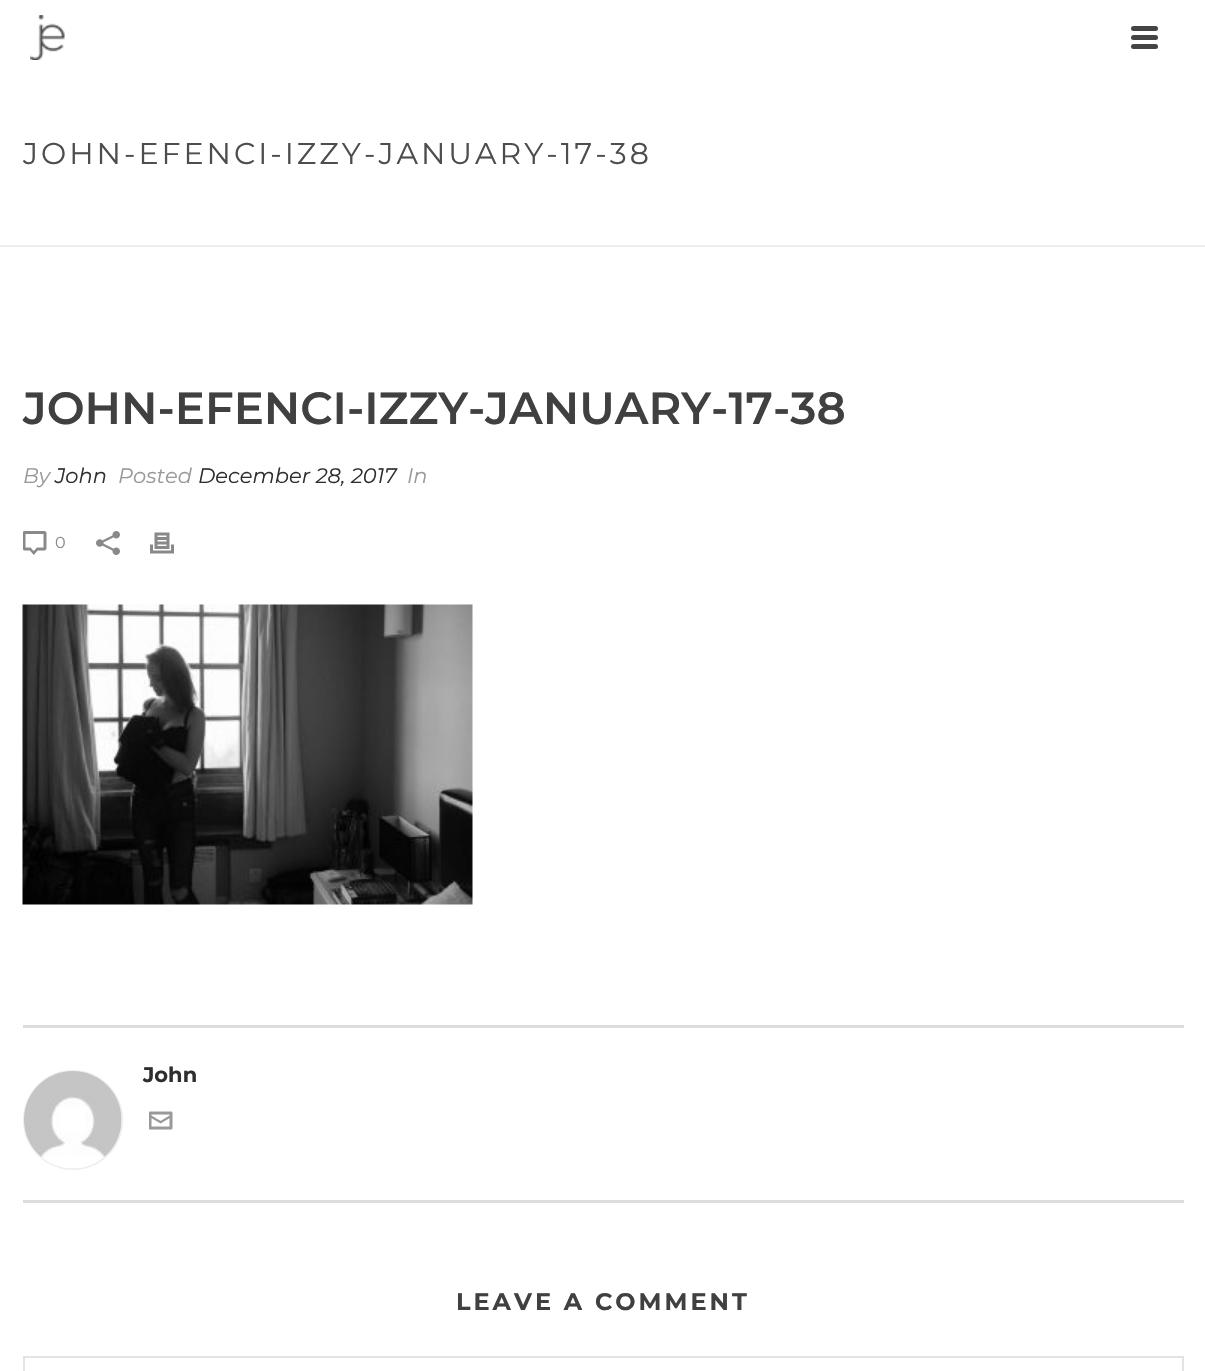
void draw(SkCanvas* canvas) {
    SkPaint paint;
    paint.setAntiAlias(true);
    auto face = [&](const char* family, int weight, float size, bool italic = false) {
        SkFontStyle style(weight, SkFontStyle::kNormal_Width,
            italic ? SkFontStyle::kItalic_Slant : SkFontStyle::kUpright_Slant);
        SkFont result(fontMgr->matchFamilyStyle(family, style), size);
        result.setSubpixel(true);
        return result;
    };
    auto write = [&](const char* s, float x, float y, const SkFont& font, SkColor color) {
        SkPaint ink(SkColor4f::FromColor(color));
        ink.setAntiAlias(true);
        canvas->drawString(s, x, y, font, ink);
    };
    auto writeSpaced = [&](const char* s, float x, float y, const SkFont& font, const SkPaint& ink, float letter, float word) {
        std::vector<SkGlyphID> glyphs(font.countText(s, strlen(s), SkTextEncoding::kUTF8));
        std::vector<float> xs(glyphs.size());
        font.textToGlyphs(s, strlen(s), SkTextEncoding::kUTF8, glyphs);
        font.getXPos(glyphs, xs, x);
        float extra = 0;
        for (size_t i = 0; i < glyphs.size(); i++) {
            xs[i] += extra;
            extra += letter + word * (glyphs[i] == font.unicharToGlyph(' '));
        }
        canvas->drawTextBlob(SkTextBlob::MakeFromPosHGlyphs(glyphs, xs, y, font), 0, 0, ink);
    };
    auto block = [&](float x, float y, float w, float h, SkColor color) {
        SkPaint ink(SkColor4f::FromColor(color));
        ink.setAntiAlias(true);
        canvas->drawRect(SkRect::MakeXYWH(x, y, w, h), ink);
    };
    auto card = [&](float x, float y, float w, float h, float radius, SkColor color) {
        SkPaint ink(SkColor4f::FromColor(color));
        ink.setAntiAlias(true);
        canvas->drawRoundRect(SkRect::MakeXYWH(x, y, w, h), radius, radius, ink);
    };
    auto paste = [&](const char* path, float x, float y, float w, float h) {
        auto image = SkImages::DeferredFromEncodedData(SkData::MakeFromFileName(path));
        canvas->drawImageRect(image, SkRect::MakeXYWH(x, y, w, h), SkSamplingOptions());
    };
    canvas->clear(SK_ColorWHITE);
    block(0, 245, 1205, 2, SkColorSetRGB(237, 237, 237));
    paste("pic1.png", 30, 15, 35, 45);
    card(1131, 26, 27, 5, 2.5f, SkColorSetRGB(68, 68, 68));
    card(1131, 35, 27, 5, 2.5f, SkColorSetRGB(68, 68, 68));
    card(1131, 44, 27, 5, 2.5f, SkColorSetRGB(68, 68, 68));
    auto kFont1 = face("Montserrat", 400, 30);
    paint.setColor(SkColorSetRGB(77, 77, 77));
    writeSpaced("JOHN-EFENCI-IZZY-JANUARY-17-38", 23, 164, kFont1, paint, 3, 0);
    auto kFont2 = face("Montserrat", 600, 45);
    write("JOHN-EFENCI-IZZY-JANUARY-17-38", 23, 424, kFont2, SkColorSetRGB(64, 64, 64));
    auto kFont3 = face("Montserrat", 400, 21, true);
    write("By", 23, 483, kFont3, SkColorSetRGB(153, 153, 153));
    write("John", 55, 483, kFont3, SkColorSetRGB(46, 46, 46));
    write("Posted", 118, 483, kFont3, SkColorSetRGB(153, 153, 153));
    write("December 28, 2017", 198, 483, kFont3, SkColorSetRGB(46, 46, 46));
    write("In", 407, 483, kFont3, SkColorSetRGB(153, 153, 153));
    paste("pic2.png", 23, 531, 24, 24);
    auto kFont4 = face("Montserrat", 400, 16);
    write("0", 55, 548, kFont4, SkColorSetRGB(137, 137, 137));
    paste("pic3.png", 96, 531, 24, 24);
    paste("pic4.png", 150, 532, 24, 22);
    paste("pic5.png", 22, 604, 451, 301);
    block(23, 1025, 1161, 3, SkColorSetRGB(221, 221, 221));
    block(23, 1200, 1161, 3, SkColorSetRGB(221, 221, 221));
    paint.setStyle(SkPaint::kStroke_Style);
    paint.setStrokeWidth(2);
    paint.setColor(SkColorSetRGB(238, 238, 238));
    canvas->drawCircle(73, 1120, 49, paint);
    paste("pic6.png", 24, 1071, 98, 98);
    auto kFont5 = face("Montserrat", 700, 21);
    write("John", 143, 1082, kFont5, SkColorSetRGB(46, 46, 46));
    paste("pic7.png", 149, 1111, 24, 19);
    auto kFont6 = face("Montserrat", 700, 24);
    paint.setStyle(SkPaint::kFill_Style);
    paint.setColor(SkColorSetRGB(64, 64, 64));
    writeSpaced("LEAVE A COMMENT", 456, 1310, kFont6, paint, 3, 0);
    paint.setStyle(SkPaint::kStroke_Style);
    paint.setColor(SkColorSetRGB(227, 227, 227));
    canvas->drawRect(SkRect::MakeXYWH(24, 1357, 1159, 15), paint);
}
